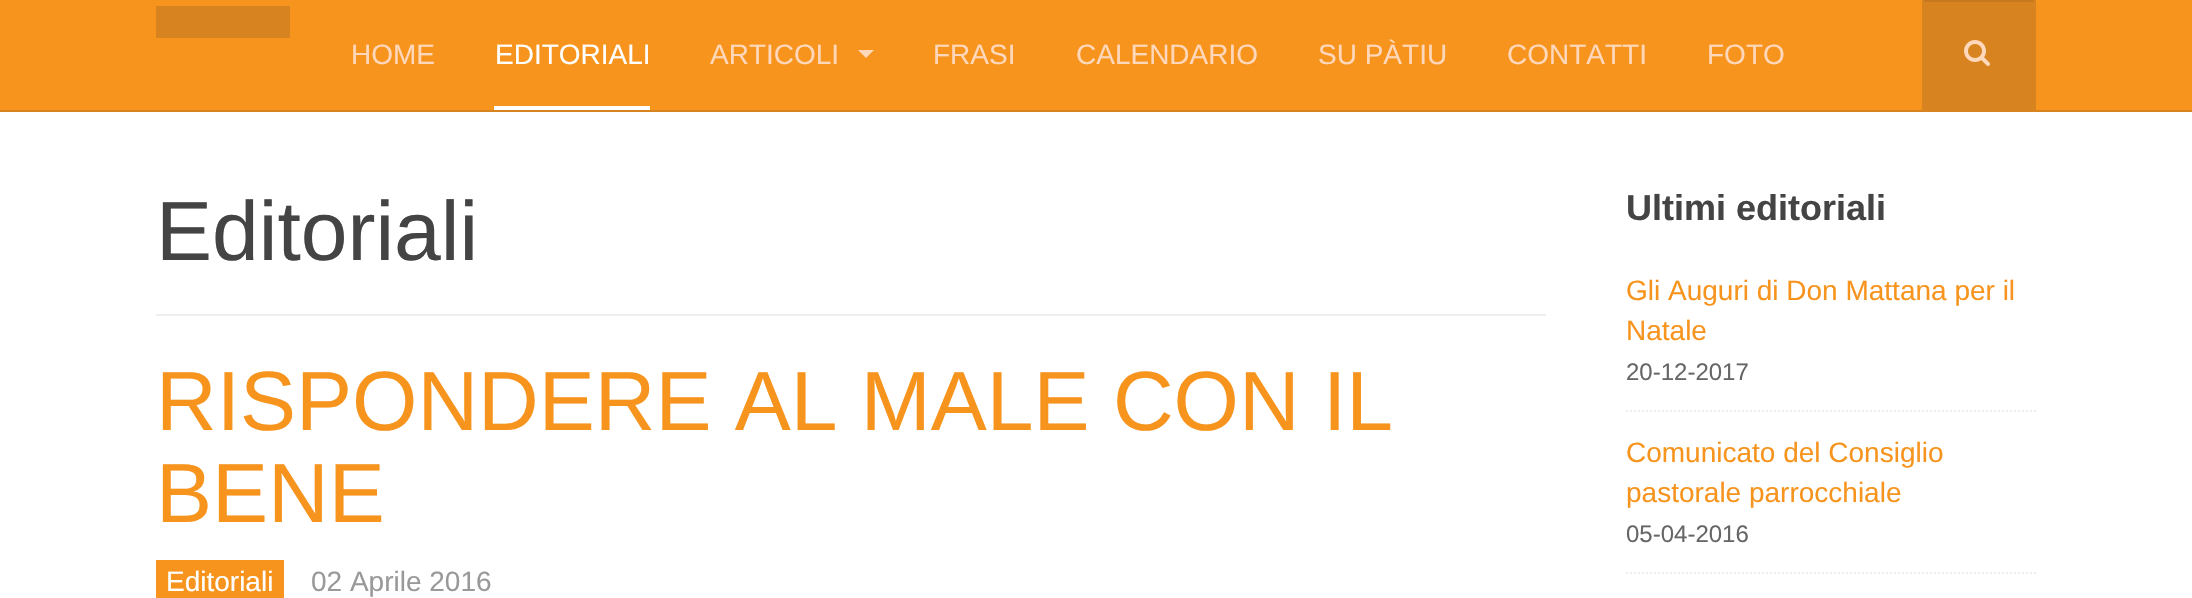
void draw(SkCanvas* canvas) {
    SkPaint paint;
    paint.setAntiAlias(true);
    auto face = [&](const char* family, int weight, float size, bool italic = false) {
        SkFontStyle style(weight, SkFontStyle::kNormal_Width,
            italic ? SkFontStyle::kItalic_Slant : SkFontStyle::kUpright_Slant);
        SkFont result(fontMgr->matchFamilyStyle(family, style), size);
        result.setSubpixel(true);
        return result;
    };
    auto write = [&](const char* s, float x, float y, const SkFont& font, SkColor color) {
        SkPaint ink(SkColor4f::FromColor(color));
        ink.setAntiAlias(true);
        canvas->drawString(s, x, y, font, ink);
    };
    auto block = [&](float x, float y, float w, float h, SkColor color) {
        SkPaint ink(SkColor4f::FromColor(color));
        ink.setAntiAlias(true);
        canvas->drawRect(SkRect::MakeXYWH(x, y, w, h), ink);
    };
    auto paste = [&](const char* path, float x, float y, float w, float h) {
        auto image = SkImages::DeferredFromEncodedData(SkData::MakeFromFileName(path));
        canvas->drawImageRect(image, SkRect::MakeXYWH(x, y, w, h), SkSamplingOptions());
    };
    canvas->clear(SK_ColorWHITE);
    block(0, 0, 2192, 110, SkColorSetRGB(247, 148, 30));
    block(0, 110, 2192, 2, SkColorSetRGB(214, 131, 32));
    block(156, 6, 134, 32, SkColorSetRGB(214, 131, 32));
    block(1922, 0, 114, 110, SkColorSetRGB(214, 131, 32));
    block(1924, 0, 110, 2, SkColorSetRGB(198, 121, 30));
    paste("pic1.png", 1964, 40, 26, 26);
    auto kFont1 = face("Liberation Sans", 400, 28);
    write("HOME", 351, 64, kFont1, SkColorSetRGB(255, 216, 187));
    block(494, 106, 156, 4, SK_ColorWHITE);
    write("EDITORIALI", 495, 64, kFont1, SK_ColorWHITE);
    write("ARTICOLI", 710, 64, kFont1, SkColorSetRGB(255, 216, 187));
    paint.setColor(SkColorSetRGB(255, 216, 187));
    canvas->drawPath(SkPathBuilder().moveTo(858, 50).lineTo(874, 50).lineTo(866, 58).close().detach(), paint);
    write("FRASI", 933, 64, kFont1, SkColorSetRGB(255, 216, 187));
    write("CALENDARIO", 1076, 64, kFont1, SkColorSetRGB(255, 216, 187));
    write("SU PÀTIU", 1318, 64, kFont1, SkColorSetRGB(255, 216, 187));
    write("CONTATTI", 1507, 64, kFont1, SkColorSetRGB(255, 216, 187));
    write("FOTO", 1707, 64, kFont1, SkColorSetRGB(255, 216, 187));
    block(156, 314, 1390, 2, SkColorSetRGB(238, 238, 238));
    auto kFont2 = face("Liberation Sans", 400, 84);
    write("Editoriali", 156, 260, kFont2, SkColorSetRGB(68, 68, 68));
    write("RISPONDERE AL MALE CON IL", 156, 430, kFont2, SkColorSetRGB(247, 148, 30));
    write("BENE", 156, 522, kFont2, SkColorSetRGB(247, 148, 30));
    block(156, 560, 128, 38, SkColorSetRGB(247, 148, 30));
    write("Editoriali", 166, 591, kFont1, SK_ColorWHITE);
    write("02 Aprile 2016", 311, 591, kFont1, SkColorSetRGB(153, 153, 153));
    auto kFont3 = face("Liberation Sans", 700, 36);
    write("Ultimi editoriali", 1626, 220, kFont3, SkColorSetRGB(68, 68, 68));
    write("Gli Auguri di Don Mattana per il", 1626, 300, kFont1, SkColorSetRGB(247, 148, 30));
    write("Natale", 1626, 340, kFont1, SkColorSetRGB(247, 148, 30));
    auto kFont4 = face("Liberation Sans", 400, 24);
    write("20-12-2017", 1626, 380, kFont4, SkColorSetRGB(102, 102, 102));
    paint.setStyle(SkPaint::kStroke_Style);
    paint.setStrokeWidth(2);
    paint.setColor(SkColorSetRGB(238, 238, 238));
    paint.setPathEffect(SkDashPathEffect::Make({{2, 2}}, 0));
    canvas->drawPath(SkPathBuilder().moveTo(1626, 411).lineTo(2036, 411).detach(), paint);
    paint.setPathEffect(nullptr);
    write("Comunicato del Consiglio", 1626, 462, kFont1, SkColorSetRGB(247, 148, 30));
    write("pastorale parrocchiale", 1626, 502, kFont1, SkColorSetRGB(247, 148, 30));
    write("05-04-2016", 1626, 542, kFont4, SkColorSetRGB(102, 102, 102));
    paint.setPathEffect(SkDashPathEffect::Make({{2, 2}}, 0));
    canvas->drawPath(SkPathBuilder().moveTo(1626, 573).lineTo(2036, 573).detach(), paint);
    paint.setPathEffect(nullptr);
}
